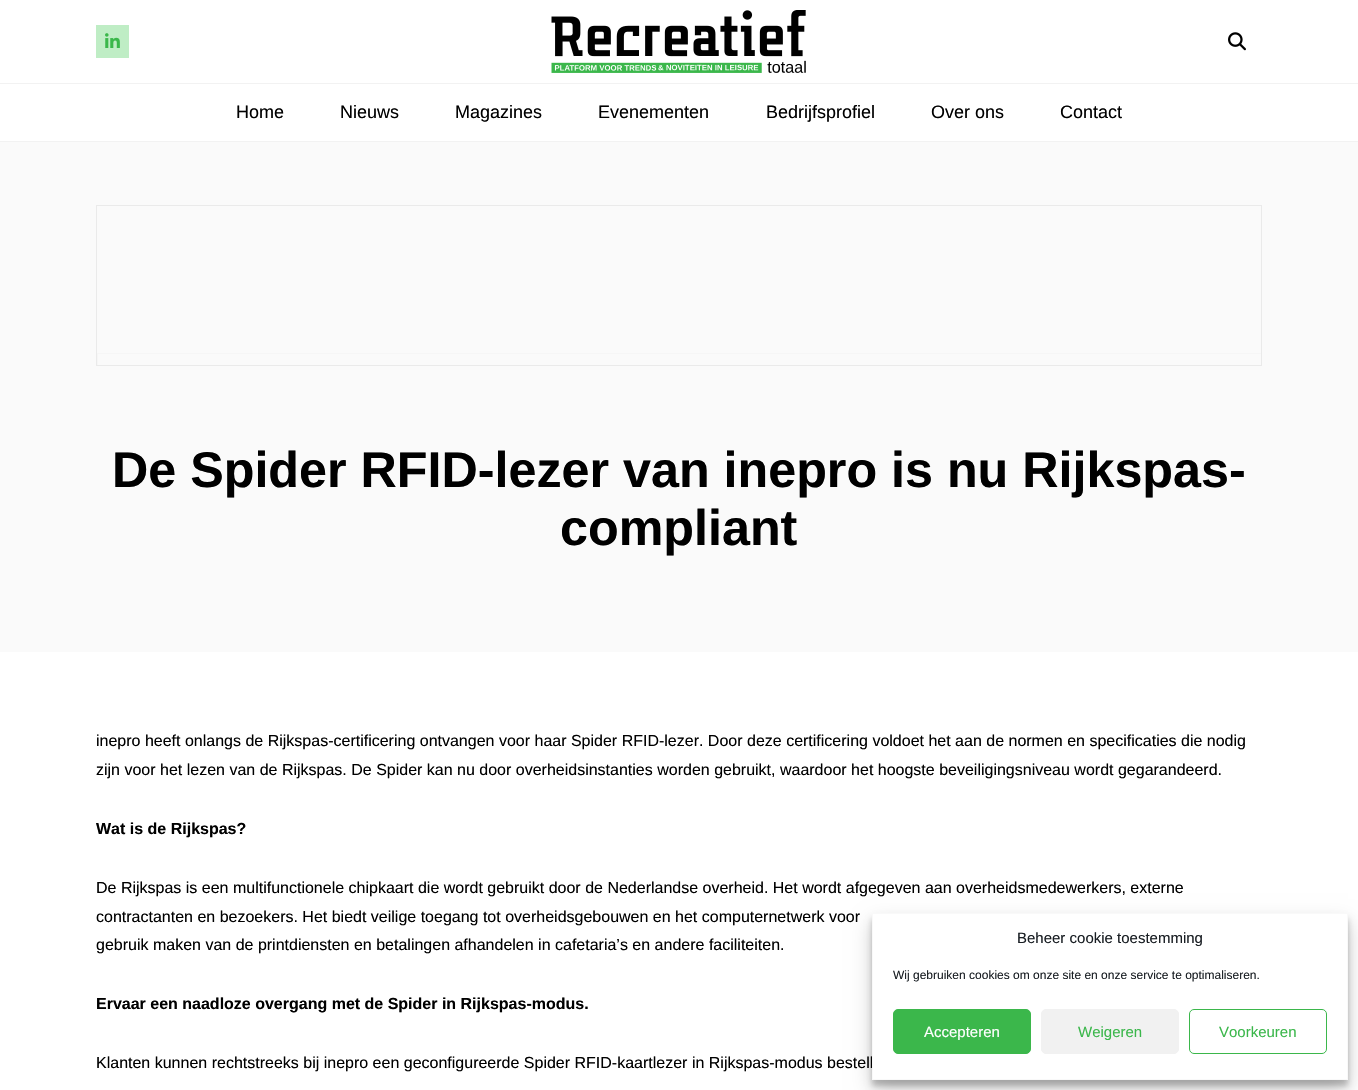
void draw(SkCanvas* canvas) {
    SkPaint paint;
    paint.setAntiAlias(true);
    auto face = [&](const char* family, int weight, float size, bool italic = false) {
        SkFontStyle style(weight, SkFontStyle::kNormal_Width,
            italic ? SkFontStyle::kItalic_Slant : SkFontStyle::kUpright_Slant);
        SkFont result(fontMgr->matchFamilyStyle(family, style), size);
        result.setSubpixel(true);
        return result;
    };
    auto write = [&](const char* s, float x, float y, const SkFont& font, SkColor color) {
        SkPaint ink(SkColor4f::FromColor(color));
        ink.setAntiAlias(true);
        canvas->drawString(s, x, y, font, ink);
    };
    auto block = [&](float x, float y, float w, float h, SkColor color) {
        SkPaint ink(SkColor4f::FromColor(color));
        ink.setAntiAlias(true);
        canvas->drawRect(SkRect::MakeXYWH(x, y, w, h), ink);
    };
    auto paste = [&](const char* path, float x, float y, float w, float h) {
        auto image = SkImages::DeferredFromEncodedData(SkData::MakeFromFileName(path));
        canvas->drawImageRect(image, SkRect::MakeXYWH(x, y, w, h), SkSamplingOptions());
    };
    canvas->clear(SK_ColorWHITE);
    block(0, 83, 1358, 1, SkColorSetRGB(242, 242, 242));
    block(96, 25, 33, 33, SkColorSetRGB(191, 237, 197));
    paste("pic1.png", 105, 33, 15, 15);
    paste("pic2.png", 551, 10, 255, 63);
    paste("pic3.png", 1228, 32, 18, 19);
    block(0, 141, 1358, 1, SkColorSetRGB(242, 242, 242));
    auto kFont1 = face("Arimo", 400, 18);
    write("Home", 236, 118, kFont1, SK_ColorBLACK);
    write("Nieuws", 340, 118, kFont1, SK_ColorBLACK);
    write("Magazines", 455, 118, kFont1, SK_ColorBLACK);
    write("Evenementen", 598, 118, kFont1, SK_ColorBLACK);
    write("Bedrijfsprofiel", 766, 118, kFont1, SK_ColorBLACK);
    write("Over ons", 931, 118, kFont1, SK_ColorBLACK);
    write("Contact", 1060, 118, kFont1, SK_ColorBLACK);
    block(0, 142, 1358, 510, SkColorSetRGB(250, 250, 250));
    paint.setStyle(SkPaint::kStroke_Style);
    paint.setStrokeWidth(1);
    paint.setColor(SkColorSetRGB(234, 234, 234));
    canvas->drawRect(SkRect::MakeXYWH(96.5f, 205.5f, 1165, 160), paint);
    canvas->save();
    canvas->clipRect(SkRect::MakeXYWH(97, 206, 1164, 159));
    paint.setColor(SkColorSetRGB(246, 246, 246));
    canvas->drawRect(SkRect::MakeXYWH(97.5f, 353.5f, 1165, 12), paint);
    canvas->restore();
    auto kFont2 = face("Arimo", 700, 50.25f);
    write("De Spider RFID-lezer van inepro is nu Rijkspas-", 112, 487, kFont2, SK_ColorBLACK);
    write("compliant", 560, 545, kFont2, SK_ColorBLACK);
    auto kFont3 = face("Arimo", 400, 16);
    write("inepro heeft onlangs de Rijkspas-certificering ontvangen voor haar Spider RFID-lezer. Door deze certificering voldoet het aan de normen en specificaties die nodig", 96, 746, kFont3, SK_ColorBLACK);
    write("zijn voor het lezen van de Rijkspas. De Spider kan nu door overheidsinstanties worden gebruikt, waardoor het hoogste beveiligingsniveau wordt gegarandeerd.", 96, 775, kFont3, SK_ColorBLACK);
    auto kFont4 = face("Arimo", 700, 16);
    write("Wat is de Rijkspas?", 96, 834, kFont4, SK_ColorBLACK);
    write("De Rijkspas is een multifunctionele chipkaart die wordt gebruikt door de Nederlandse overheid. Het wordt afgegeven aan overheidsmedewerkers, externe", 96, 893, kFont3, SK_ColorBLACK);
    write("contractanten en bezoekers. Het biedt veilige toegang tot overheidsgebouwen en het computernetwerk voor", 96, 922, kFont3, SK_ColorBLACK);
    write("gebruik maken van de printdiensten en betalingen afhandelen in cafetaria’s en andere faciliteiten.", 96, 950, kFont3, SK_ColorBLACK);
    write("Ervaar een naadloze overgang met de Spider in Rijkspas-modus.", 96, 1009, kFont4, SK_ColorBLACK);
    write("Klanten kunnen rechtstreeks bij inepro een geconfigureerde Spider RFID-kaartlezer in Rijkspas-modus bestell", 96, 1068, kFont3, SK_ColorBLACK);
    paint.setStyle(SkPaint::kFill_Style);
    paint.setColor(SkColorSetARGB(59, 0, 0, 0));
    paint.setMaskFilter(SkMaskFilter::MakeBlur(kNormal_SkBlurStyle, 3));
    canvas->drawRect(SkRect::MakeXYWH(872, 919, 476, 167), paint);
    paint.setMaskFilter(nullptr);
    paint.setColor(SkColorSetARGB(48, 0, 0, 0));
    paint.setMaskFilter(SkMaskFilter::MakeBlur(kNormal_SkBlurStyle, 10));
    canvas->drawRect(SkRect::MakeXYWH(872, 923, 476, 167), paint);
    paint.setMaskFilter(nullptr);
    paint.setColor(SK_ColorWHITE);
    canvas->drawRect(SkRect::MakeXYWH(872.5f, 913.5f, 475, 166), paint);
    paint.setStyle(SkPaint::kStroke_Style);
    paint.setColor(SkColorSetRGB(249, 249, 249));
    canvas->drawRect(SkRect::MakeXYWH(872.5f, 913.5f, 475, 166), paint);
    auto kFont5 = face("Arimo", 400, 15);
    write("Beheer cookie toestemming", 1017, 943, kFont5, SkColorSetRGB(25, 30, 35));
    auto kFont6 = face("Arimo", 400, 12);
    write("Wij gebruiken cookies om onze site en onze service te optimaliseren.", 893, 979, kFont6, SkColorSetRGB(25, 30, 35));
    paint.setStyle(SkPaint::kFill_Style);
    paint.setColor(SkColorSetRGB(59, 183, 75));
    canvas->drawRoundRect(SkRect::MakeXYWH(893.5f, 1009.5f, 137, 44), 4.5f, 4.5f, paint);
    paint.setStyle(SkPaint::kStroke_Style);
    canvas->drawRoundRect(SkRect::MakeXYWH(893.5f, 1009.5f, 137, 44), 4.5f, 4.5f, paint);
    auto kFont7 = face("Liberation Sans", 400, 15);
    write("Accepteren", 924, 1037, kFont7, SK_ColorWHITE);
    paint.setStyle(SkPaint::kFill_Style);
    paint.setColor(SkColorSetRGB(241, 241, 241));
    canvas->drawRoundRect(SkRect::MakeXYWH(1041.5f, 1009.5f, 137, 44), 4.5f, 4.5f, paint);
    paint.setStyle(SkPaint::kStroke_Style);
    canvas->drawRoundRect(SkRect::MakeXYWH(1041.5f, 1009.5f, 137, 44), 4.5f, 4.5f, paint);
    write("Weigeren", 1078, 1037, kFont7, SkColorSetRGB(59, 183, 75));
    paint.setColor(SkColorSetRGB(59, 183, 75));
    canvas->drawRoundRect(SkRect::MakeXYWH(1189.5f, 1009.5f, 137, 44), 4.5f, 4.5f, paint);
    write("Voorkeuren", 1219, 1037, kFont7, SkColorSetRGB(59, 183, 75));
}
